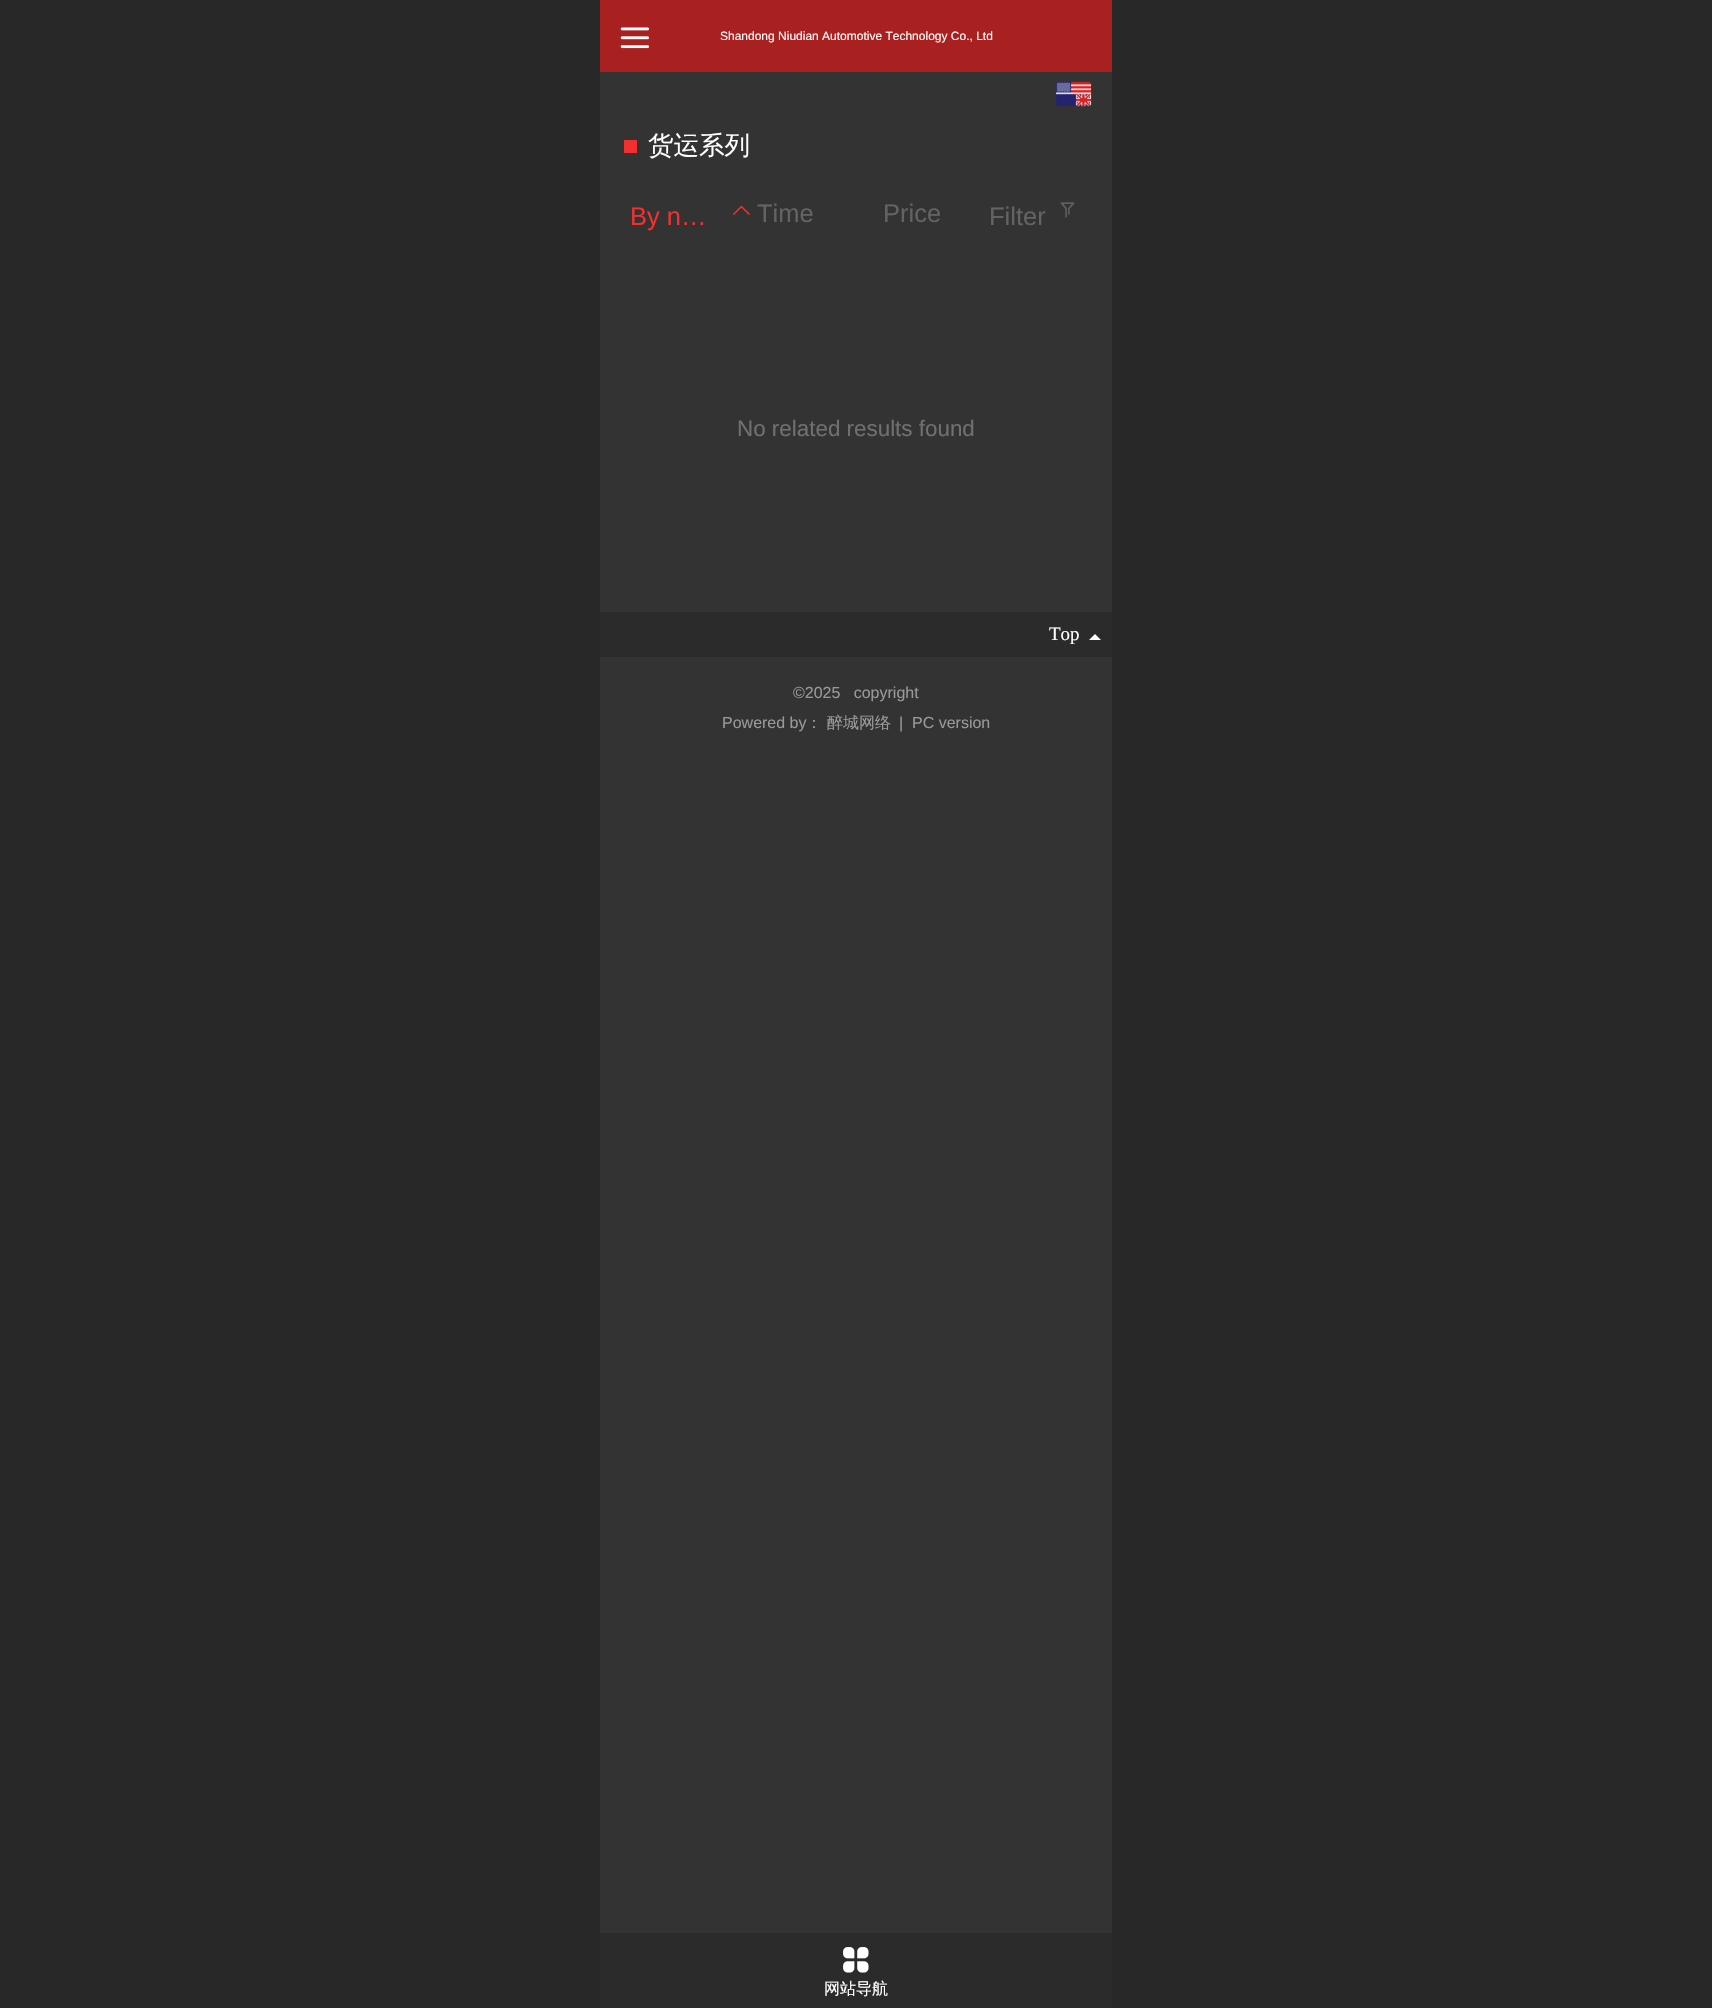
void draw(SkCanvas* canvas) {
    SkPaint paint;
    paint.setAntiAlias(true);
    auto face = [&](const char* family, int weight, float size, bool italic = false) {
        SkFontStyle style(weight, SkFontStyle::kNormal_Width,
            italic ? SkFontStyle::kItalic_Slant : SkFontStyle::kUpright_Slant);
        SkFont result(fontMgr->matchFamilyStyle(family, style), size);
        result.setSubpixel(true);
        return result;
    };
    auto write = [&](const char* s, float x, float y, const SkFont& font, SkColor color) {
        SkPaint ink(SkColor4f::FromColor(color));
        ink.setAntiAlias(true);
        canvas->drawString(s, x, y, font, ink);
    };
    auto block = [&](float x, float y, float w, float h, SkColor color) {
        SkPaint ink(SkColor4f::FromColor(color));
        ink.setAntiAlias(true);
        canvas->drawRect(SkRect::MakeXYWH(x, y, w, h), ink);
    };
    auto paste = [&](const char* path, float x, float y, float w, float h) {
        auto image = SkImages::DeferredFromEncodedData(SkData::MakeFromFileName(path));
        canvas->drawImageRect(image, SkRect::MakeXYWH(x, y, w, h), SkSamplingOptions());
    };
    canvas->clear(SkColorSetRGB(51, 51, 51));
    block(0, 0, 600, 2008, SkColorSetRGB(40, 40, 40));
    block(600, 0, 512, 72, SkColorSetRGB(168, 32, 32));
    paste("pic1.png", 620, 27, 29, 22);
    auto kFont1 = face("Liberation Sans", 400, 12);
    write("Shandong Niudian Automotive Technology Co., Ltd", 720, 40, kFont1, SK_ColorWHITE);
    paste("pic2.png", 1056, 81, 36, 26);
    block(624, 140, 13, 13, SkColorSetRGB(242, 48, 48));
    auto kFont2 = face("WenQuanYi Zen Hei", 500, 25.5f);
    write("货运系列", 648, 154, kFont2, SK_ColorWHITE);
    auto kFont3 = face("Liberation Sans", 400, 25.5f);
    write("By n…", 630, 225, kFont3, SkColorSetRGB(242, 48, 48));
    paste("pic3.png", 733, 205, 17, 10);
    write("Time", 757, 222, kFont3, SkColorSetRGB(99, 99, 99));
    write("Price", 883, 222, kFont3, SkColorSetRGB(99, 99, 99));
    write("Filter", 989, 225, kFont3, SkColorSetRGB(99, 99, 99));
    paste("pic4.png", 1060, 202, 15, 16);
    auto kFont4 = face("Liberation Sans", 400, 22.4f);
    write("No related results found", 737, 436, kFont4, SkColorSetRGB(112, 112, 112));
    block(600, 612, 512, 45, SkColorSetRGB(43, 43, 43));
    auto kFont5 = face("Liberation Serif", 400, 19);
    write("Top", 1049, 640, kFont5, SK_ColorWHITE);
    paint.setColor(SK_ColorWHITE);
    canvas->drawPath(SkPathBuilder().moveTo(1101, 640).lineTo(1089, 640).lineTo(1095, 634).close().detach(), paint);
    auto kFont6 = face("Liberation Sans", 400, 16);
    write("©2025   copyright", 793, 698, kFont6, SkColorSetRGB(153, 153, 153));
    write("Powered by", 722, 728, kFont6, SkColorSetRGB(153, 153, 153));
    auto kFont7 = face("WenQuanYi Zen Hei", 500, 16);
    write("：", 806, 728, kFont7, SkColorSetRGB(153, 153, 153));
    write("醉城网络", 827, 728, kFont7, SkColorSetRGB(153, 153, 153));
    write("|", 899, 728, kFont6, SkColorSetRGB(153, 153, 153));
    write("PC version", 912, 728, kFont6, SkColorSetRGB(153, 153, 153));
    block(600, 1933, 512, 75, SkColorSetRGB(43, 43, 43));
    paste("pic5.png", 843, 1947, 26, 26);
    write("网站导航", 824, 1994, kFont7, SK_ColorWHITE);
    block(1112, 0, 600, 2008, SkColorSetRGB(40, 40, 40));
}
